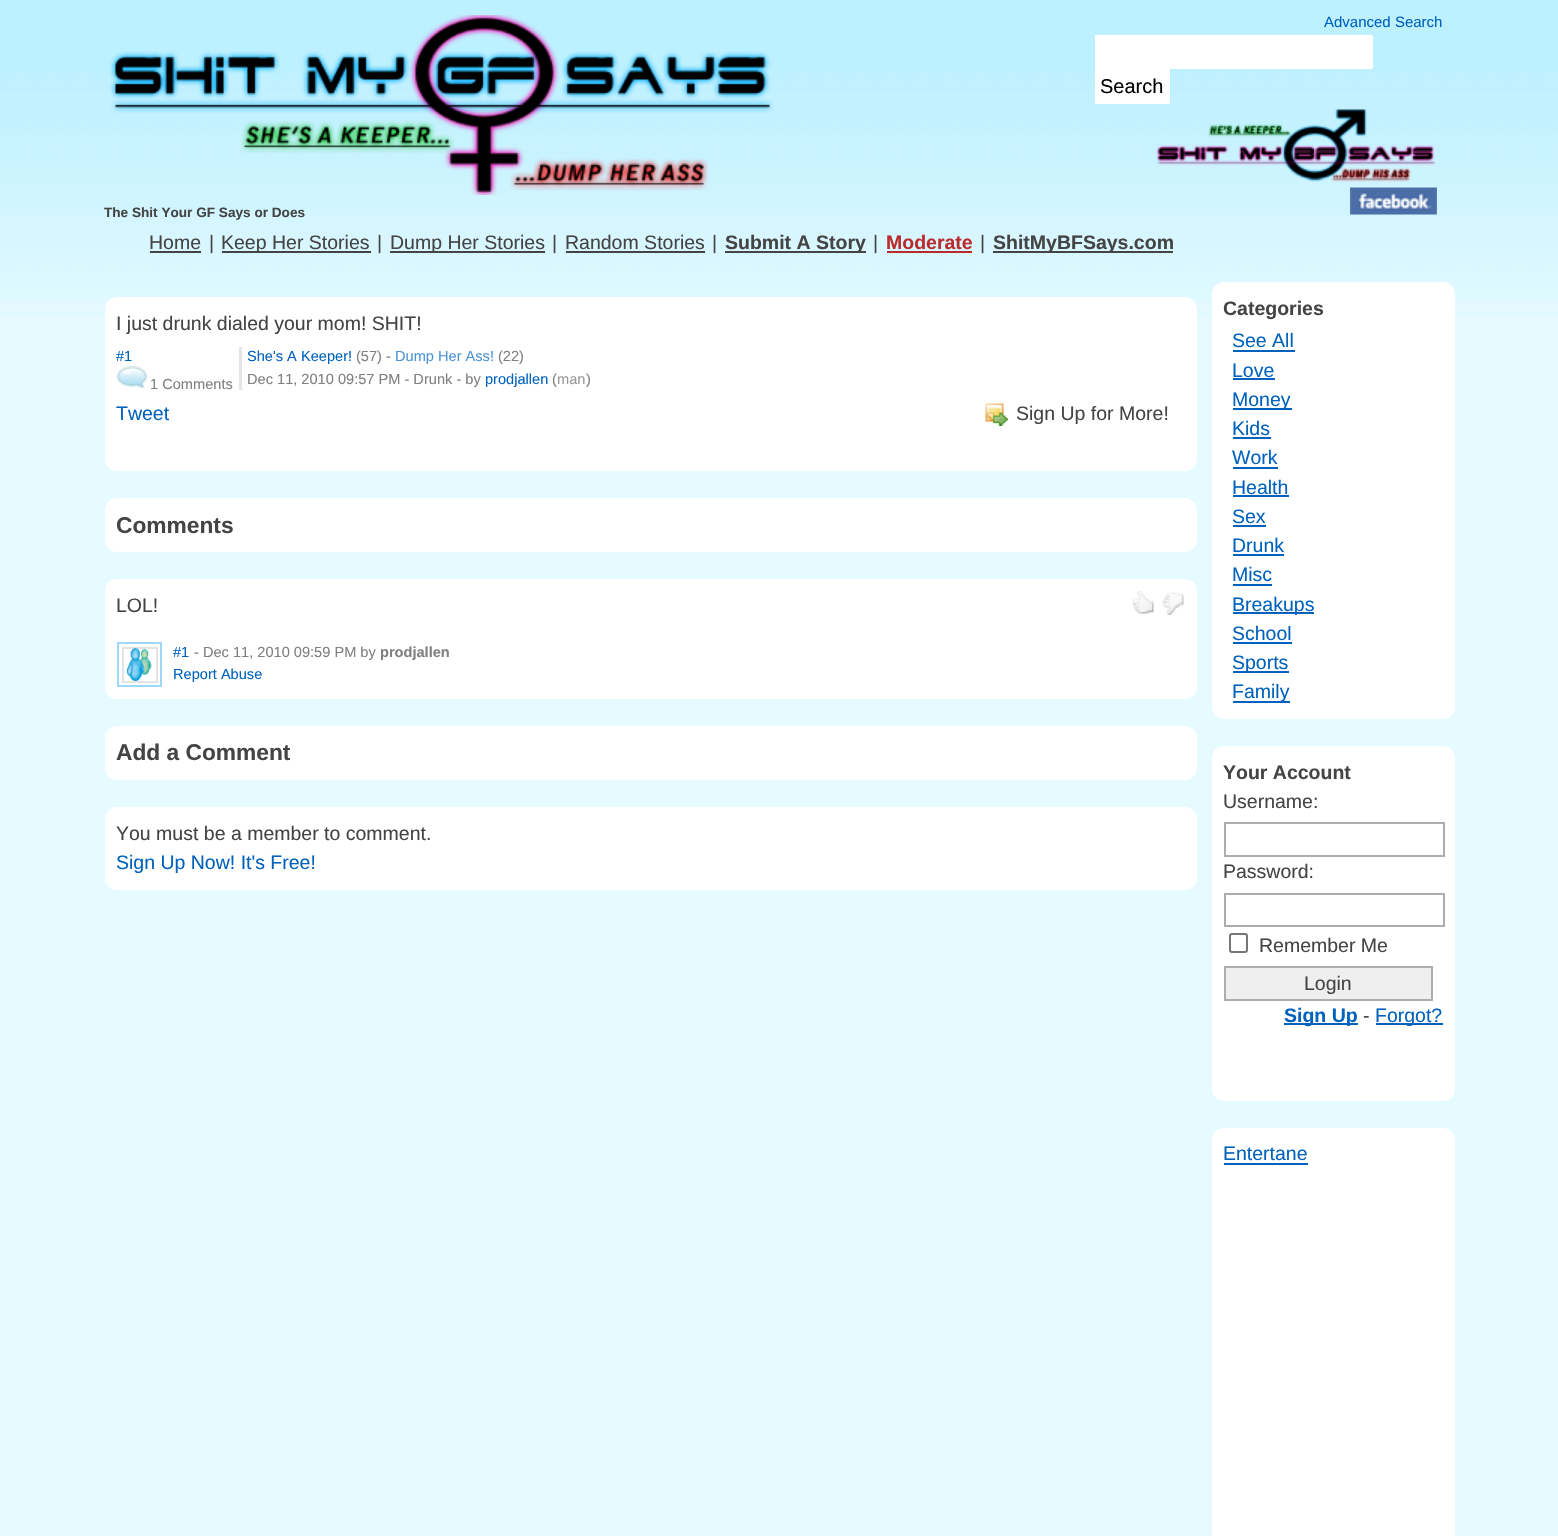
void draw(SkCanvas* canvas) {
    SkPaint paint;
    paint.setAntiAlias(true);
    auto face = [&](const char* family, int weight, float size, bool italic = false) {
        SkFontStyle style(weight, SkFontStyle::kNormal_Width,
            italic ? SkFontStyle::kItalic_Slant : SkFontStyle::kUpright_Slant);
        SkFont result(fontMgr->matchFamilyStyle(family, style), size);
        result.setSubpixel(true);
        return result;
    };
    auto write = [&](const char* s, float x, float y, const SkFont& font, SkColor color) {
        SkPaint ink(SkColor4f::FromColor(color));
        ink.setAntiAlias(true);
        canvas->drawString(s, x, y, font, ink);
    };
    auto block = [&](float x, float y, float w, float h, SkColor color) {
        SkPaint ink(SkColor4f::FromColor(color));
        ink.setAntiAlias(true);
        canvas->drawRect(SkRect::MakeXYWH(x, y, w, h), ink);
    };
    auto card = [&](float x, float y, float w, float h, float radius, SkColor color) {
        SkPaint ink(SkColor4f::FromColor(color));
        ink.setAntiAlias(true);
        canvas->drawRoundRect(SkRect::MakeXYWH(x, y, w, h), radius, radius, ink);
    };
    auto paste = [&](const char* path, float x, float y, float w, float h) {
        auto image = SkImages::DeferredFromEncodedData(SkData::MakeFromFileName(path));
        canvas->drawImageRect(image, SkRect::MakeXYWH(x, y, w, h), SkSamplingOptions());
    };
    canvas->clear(SkColorSetRGB(230, 251, 255));
    paste("pic1.png", 0, 0, 1558, 315);
    auto kFont1 = face("Liberation Sans", 400, 15);
    write("Advanced Search", 1324, 27, kFont1, SkColorSetRGB(0, 98, 189));
    block(1095, 35, 278, 34, SK_ColorWHITE);
    block(1095, 69, 75, 35, SK_ColorWHITE);
    auto kFont2 = face("Liberation Sans", 400, 20);
    write("Search", 1100, 93, kFont2, SK_ColorBLACK);
    paste("pic2.png", 1156, 109, 280, 73);
    paste("pic3.png", 1350, 187, 87, 28);
    paste("pic4.png", 109, 15, 665, 180);
    auto kFont3 = face("Liberation Sans", 700, 13.6f);
    write("The Shit Your GF Says or Does", 104, 217, kFont3, SkColorSetRGB(68, 68, 68));
    auto kFont4 = face("Liberation Sans", 400, 19.5f);
    write("Home", 149, 249, kFont4, SkColorSetRGB(68, 68, 68));
    block(150, 251, 51, 2, SkColorSetRGB(68, 68, 68));
    write("|", 209, 249, kFont4, SkColorSetRGB(68, 68, 68));
    block(222, 251, 149, 2, SkColorSetRGB(68, 68, 68));
    write("Keep Her Stories", 221, 249, kFont4, SkColorSetRGB(68, 68, 68));
    write("|", 377, 249, kFont4, SkColorSetRGB(68, 68, 68));
    block(390, 251, 155, 2, SkColorSetRGB(68, 68, 68));
    write("Dump Her Stories", 390, 249, kFont4, SkColorSetRGB(68, 68, 68));
    write("|", 552, 249, kFont4, SkColorSetRGB(68, 68, 68));
    write("Random Stories", 565, 249, kFont4, SkColorSetRGB(68, 68, 68));
    block(566, 251, 139, 2, SkColorSetRGB(68, 68, 68));
    write("|", 712, 249, kFont4, SkColorSetRGB(68, 68, 68));
    block(725, 251, 141, 2, SkColorSetRGB(68, 68, 68));
    auto kFont5 = face("Liberation Sans", 700, 19.5f);
    write("Submit A Story", 725, 249, kFont5, SkColorSetRGB(68, 68, 68));
    write("|", 873, 249, kFont4, SkColorSetRGB(68, 68, 68));
    write("Moderate", 886, 249, kFont5, SkColorSetRGB(186, 44, 44));
    block(887, 251, 85, 2, SkColorSetRGB(186, 44, 44));
    write("|", 980, 249, kFont4, SkColorSetRGB(68, 68, 68));
    block(993, 251, 180, 2, SkColorSetRGB(68, 68, 68));
    write("ShitMyBFSays.com", 993, 249, kFont5, SkColorSetRGB(68, 68, 68));
    card(105, 297, 1092, 174, 12, SK_ColorWHITE);
    write("I just drunk dialed your mom! SHIT!", 116, 330, kFont4, SkColorSetRGB(68, 68, 68));
    auto kFont6 = face("Liberation Sans", 400, 14.6f);
    write("#1", 116, 361, kFont6, SkColorSetRGB(0, 98, 189));
    paste("pic5.png", 117, 366, 30, 23);
    write("1 Comments", 150, 389, kFont6, SkColorSetRGB(128, 128, 128));
    block(239, 347, 3, 43, SkColorSetRGB(229, 229, 229));
    write("She's A Keeper!", 247, 361, kFont6, SkColorSetRGB(0, 98, 189));
    write("(57) -", 356, 361, kFont6, SkColorSetRGB(128, 128, 128));
    write("Dump Her Ass!", 395, 361, kFont6, SkColorSetRGB(76, 147, 214));
    write("(22)", 498, 361, kFont6, SkColorSetRGB(128, 128, 128));
    write("Dec 11, 2010 09:57 PM - Drunk - by", 247, 384, kFont6, SkColorSetRGB(128, 128, 128));
    write("prodjallen", 485, 384, kFont6, SkColorSetRGB(0, 98, 189));
    write("(", 552, 384, kFont6, SkColorSetRGB(128, 128, 128));
    write("man", 557, 384, kFont6, SkColorSetRGB(153, 153, 153));
    write(")", 586, 384, kFont6, SkColorSetRGB(128, 128, 128));
    write("Tweet", 116, 420, kFont4, SkColorSetRGB(0, 98, 189));
    paste("pic6.png", 985, 403, 23, 23);
    write("Sign Up for More!", 1016, 420, kFont4, SkColorSetRGB(68, 68, 68));
    card(105, 498, 1092, 54, 12, SK_ColorWHITE);
    auto kFont7 = face("Liberation Sans", 700, 22.75f);
    write("Comments", 116, 533, kFont7, SkColorSetRGB(68, 68, 68));
    card(105, 579, 1092, 120, 12, SK_ColorWHITE);
    write("LOL!", 116, 612, kFont4, SkColorSetRGB(68, 68, 68));
    paste("pic7.png", 1132, 591, 22, 24);
    paste("pic8.png", 1162, 592, 22, 23);
    paint.setStyle(SkPaint::kStroke_Style);
    paint.setStrokeWidth(2);
    paint.setColor(SkColorSetRGB(157, 215, 248));
    canvas->drawRect(SkRect::MakeXYWH(118, 643, 43, 43), paint);
    paint.setColor(SkColorSetRGB(228, 228, 228));
    canvas->drawRect(SkRect::MakeXYWH(123, 648, 34, 34), paint);
    paste("pic9.png", 127, 648, 25, 33);
    write("#1", 173, 657, kFont6, SkColorSetRGB(0, 98, 189));
    write("- Dec 11, 2010 09:59 PM by", 194, 657, kFont6, SkColorSetRGB(128, 128, 128));
    auto kFont8 = face("Liberation Sans", 700, 14.6f);
    write("prodjallen", 380, 657, kFont8, SkColorSetRGB(128, 128, 128));
    write("Report Abuse", 173, 679, kFont6, SkColorSetRGB(0, 98, 189));
    card(105, 726, 1092, 54, 12, SK_ColorWHITE);
    write("Add a Comment", 116, 760, kFont7, SkColorSetRGB(68, 68, 68));
    card(105, 807, 1092, 83, 12, SK_ColorWHITE);
    write("You must be a member to comment.", 116, 840, kFont4, SkColorSetRGB(68, 68, 68));
    write("Sign Up Now! It's Free!", 116, 869, kFont4, SkColorSetRGB(0, 98, 189));
    card(1212, 282, 243, 437, 12, SK_ColorWHITE);
    write("Categories", 1223, 315, kFont5, SkColorSetRGB(68, 68, 68));
    write("See All", 1232, 347, kFont4, SkColorSetRGB(0, 98, 189));
    block(1233, 350, 62, 2, SkColorSetRGB(0, 98, 189));
    write("Love", 1232, 377, kFont4, SkColorSetRGB(0, 98, 189));
    block(1233, 378, 42, 2, SkColorSetRGB(0, 98, 189));
    block(1233, 408, 59, 2, SkColorSetRGB(0, 98, 189));
    write("Money", 1232, 406, kFont4, SkColorSetRGB(0, 98, 189));
    write("Kids", 1232, 435, kFont4, SkColorSetRGB(0, 98, 189));
    block(1233, 437, 38, 2, SkColorSetRGB(0, 98, 189));
    write("Work", 1232, 464, kFont4, SkColorSetRGB(0, 98, 189));
    block(1233, 467, 45, 2, SkColorSetRGB(0, 98, 189));
    write("Health", 1232, 494, kFont4, SkColorSetRGB(0, 98, 189));
    block(1233, 495, 56, 2, SkColorSetRGB(0, 98, 189));
    write("Sex", 1232, 523, kFont4, SkColorSetRGB(0, 98, 189));
    block(1233, 525, 33, 2, SkColorSetRGB(0, 98, 189));
    write("Drunk", 1232, 552, kFont4, SkColorSetRGB(0, 98, 189));
    block(1233, 554, 51, 2, SkColorSetRGB(0, 98, 189));
    write("Misc", 1232, 581, kFont4, SkColorSetRGB(0, 98, 189));
    block(1233, 584, 39, 2, SkColorSetRGB(0, 98, 189));
    block(1233, 612, 81, 2, SkColorSetRGB(0, 98, 189));
    write("Breakups", 1232, 611, kFont4, SkColorSetRGB(0, 98, 189));
    write("School", 1232, 640, kFont4, SkColorSetRGB(0, 98, 189));
    block(1233, 642, 59, 2, SkColorSetRGB(0, 98, 189));
    block(1233, 671, 56, 2, SkColorSetRGB(0, 98, 189));
    write("Sports", 1232, 669, kFont4, SkColorSetRGB(0, 98, 189));
    block(1233, 701, 57, 2, SkColorSetRGB(0, 98, 189));
    write("Family", 1232, 698, kFont4, SkColorSetRGB(0, 98, 189));
    card(1212, 746, 243, 355, 12, SK_ColorWHITE);
    write("Your Account", 1223, 779, kFont5, SkColorSetRGB(68, 68, 68));
    write("Username:", 1223, 808, kFont4, SkColorSetRGB(68, 68, 68));
    paint.setColor(SkColorSetRGB(173, 173, 173));
    canvas->drawRect(SkRect::MakeXYWH(1225, 823, 219, 33), paint);
    write("Password:", 1223, 878, kFont4, SkColorSetRGB(68, 68, 68));
    canvas->drawRect(SkRect::MakeXYWH(1225, 894, 219, 32), paint);
    paint.setColor(SkColorSetRGB(118, 118, 118));
    canvas->drawRoundRect(SkRect::MakeXYWH(1230, 934, 17, 18), 2, 2, paint);
    write("Remember Me", 1259, 952, kFont4, SkColorSetRGB(68, 68, 68));
    paint.setStyle(SkPaint::kFill_Style);
    paint.setColor(SkColorSetRGB(239, 239, 239));
    canvas->drawRect(SkRect::MakeXYWH(1225, 967, 207, 33), paint);
    paint.setStyle(SkPaint::kStroke_Style);
    paint.setColor(SkColorSetRGB(173, 173, 173));
    canvas->drawRect(SkRect::MakeXYWH(1225, 967, 207, 33), paint);
    write("Login", 1304, 990, kFont4, SkColorSetRGB(68, 68, 68));
    block(1284, 1023, 74, 2, SkColorSetRGB(0, 98, 189));
    write("Sign Up", 1284, 1022, kFont5, SkColorSetRGB(0, 98, 189));
    write("-", 1363, 1022, kFont4, SkColorSetRGB(68, 68, 68));
    block(1376, 1023, 67, 2, SkColorSetRGB(0, 98, 189));
    write("Forgot?", 1375, 1022, kFont4, SkColorSetRGB(0, 98, 189));
    card(1212, 1128, 243, 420, 12, SK_ColorWHITE);
    write("Entertane", 1223, 1160, kFont4, SkColorSetRGB(0, 98, 189));
    block(1224, 1163, 84, 2, SkColorSetRGB(0, 98, 189));
}
